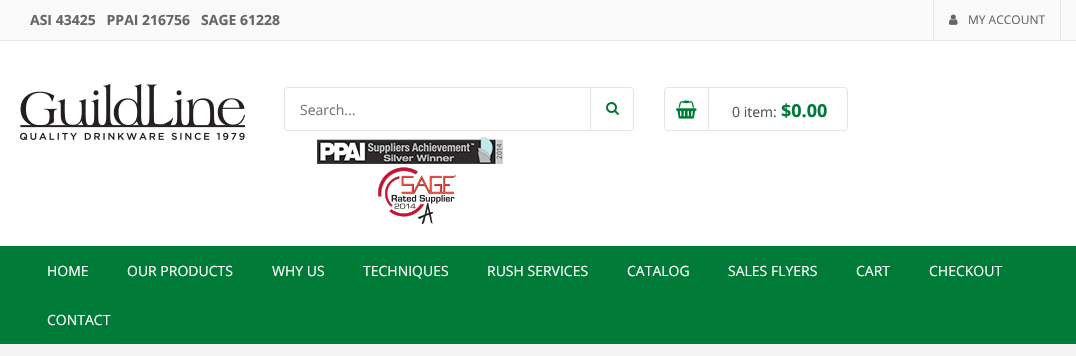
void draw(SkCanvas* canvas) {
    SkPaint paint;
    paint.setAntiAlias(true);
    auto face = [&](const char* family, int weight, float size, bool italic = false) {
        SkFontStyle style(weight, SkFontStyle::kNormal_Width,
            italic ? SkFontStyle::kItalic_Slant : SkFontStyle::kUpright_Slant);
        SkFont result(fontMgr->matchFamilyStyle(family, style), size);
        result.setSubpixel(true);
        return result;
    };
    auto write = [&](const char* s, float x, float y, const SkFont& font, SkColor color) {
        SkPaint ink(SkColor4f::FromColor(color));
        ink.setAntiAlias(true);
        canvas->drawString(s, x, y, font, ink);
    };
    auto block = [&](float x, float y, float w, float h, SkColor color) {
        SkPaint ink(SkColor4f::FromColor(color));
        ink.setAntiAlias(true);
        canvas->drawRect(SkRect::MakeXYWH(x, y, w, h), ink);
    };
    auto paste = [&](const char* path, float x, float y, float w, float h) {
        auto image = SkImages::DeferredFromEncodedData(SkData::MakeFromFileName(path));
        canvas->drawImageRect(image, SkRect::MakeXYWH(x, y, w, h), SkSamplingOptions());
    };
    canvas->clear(SkColorSetRGB(244, 244, 244));
    block(0, 0, 1076, 40, SkColorSetRGB(250, 250, 250));
    block(0, 40, 1076, 1, SkColorSetRGB(232, 232, 232));
    auto kFont1 = face("Open Sans", 700, 14);
    write("ASI 43425   PPAI 216756   SAGE 61228", 30, 25, kFont1, SkColorSetRGB(102, 102, 102));
    block(1060, 0, 1, 40, SkColorSetRGB(229, 229, 229));
    block(933, 0, 1, 40, SkColorSetRGB(229, 229, 229));
    paste("pic1.png", 949, 14, 9, 11);
    auto kFont2 = face("Open Sans", 400, 12);
    write("MY ACCOUNT", 968, 24, kFont2, SkColorSetRGB(102, 102, 102));
    block(0, 41, 1076, 205, SK_ColorWHITE);
    paste("pic2.png", 20, 84, 225, 56);
    paint.setStyle(SkPaint::kStroke_Style);
    paint.setStrokeWidth(1);
    paint.setColor(SkColorSetRGB(229, 229, 229));
    canvas->drawRoundRect(SkRect::MakeXYWH(284.5f, 87.5f, 349, 43), 3.5f, 3.5f, paint);
    auto kFont3 = face("Open Sans", 400, 14);
    write("Search...", 300, 115, kFont3, SkColorSetRGB(117, 117, 117));
    block(590, 87, 1, 44, SkColorSetRGB(229, 229, 229));
    paste("pic3.png", 606, 102, 13, 13);
    canvas->drawRoundRect(SkRect::MakeXYWH(664.5f, 87.5f, 183, 43), 3.5f, 3.5f, paint);
    block(708, 88, 1, 42, SkColorSetRGB(229, 229, 229));
    paste("pic4.png", 676, 100, 21, 19);
    write("0 item:", 732, 117, kFont3, SkColorSetRGB(85, 85, 85));
    auto kFont4 = face("Open Sans", 700, 18);
    write("$0.00", 781, 117, kFont4, SkColorSetRGB(0, 123, 55));
    paste("pic5.png", 317, 137, 186, 87);
    block(0, 246, 1076, 98, SkColorSetRGB(0, 123, 55));
    write("HOME", 47, 276, kFont3, SK_ColorWHITE);
    write("OUR PRODUCTS", 127, 276, kFont3, SK_ColorWHITE);
    write("WHY US", 272, 276, kFont3, SK_ColorWHITE);
    write("TECHNIQUES", 363, 276, kFont3, SK_ColorWHITE);
    write("RUSH SERVICES", 487, 276, kFont3, SK_ColorWHITE);
    write("CATALOG", 627, 276, kFont3, SK_ColorWHITE);
    write("SALES FLYERS", 728, 276, kFont3, SK_ColorWHITE);
    write("CART", 856, 276, kFont3, SK_ColorWHITE);
    write("CHECKOUT", 929, 276, kFont3, SK_ColorWHITE);
    write("CONTACT", 47, 325, kFont3, SK_ColorWHITE);
}
